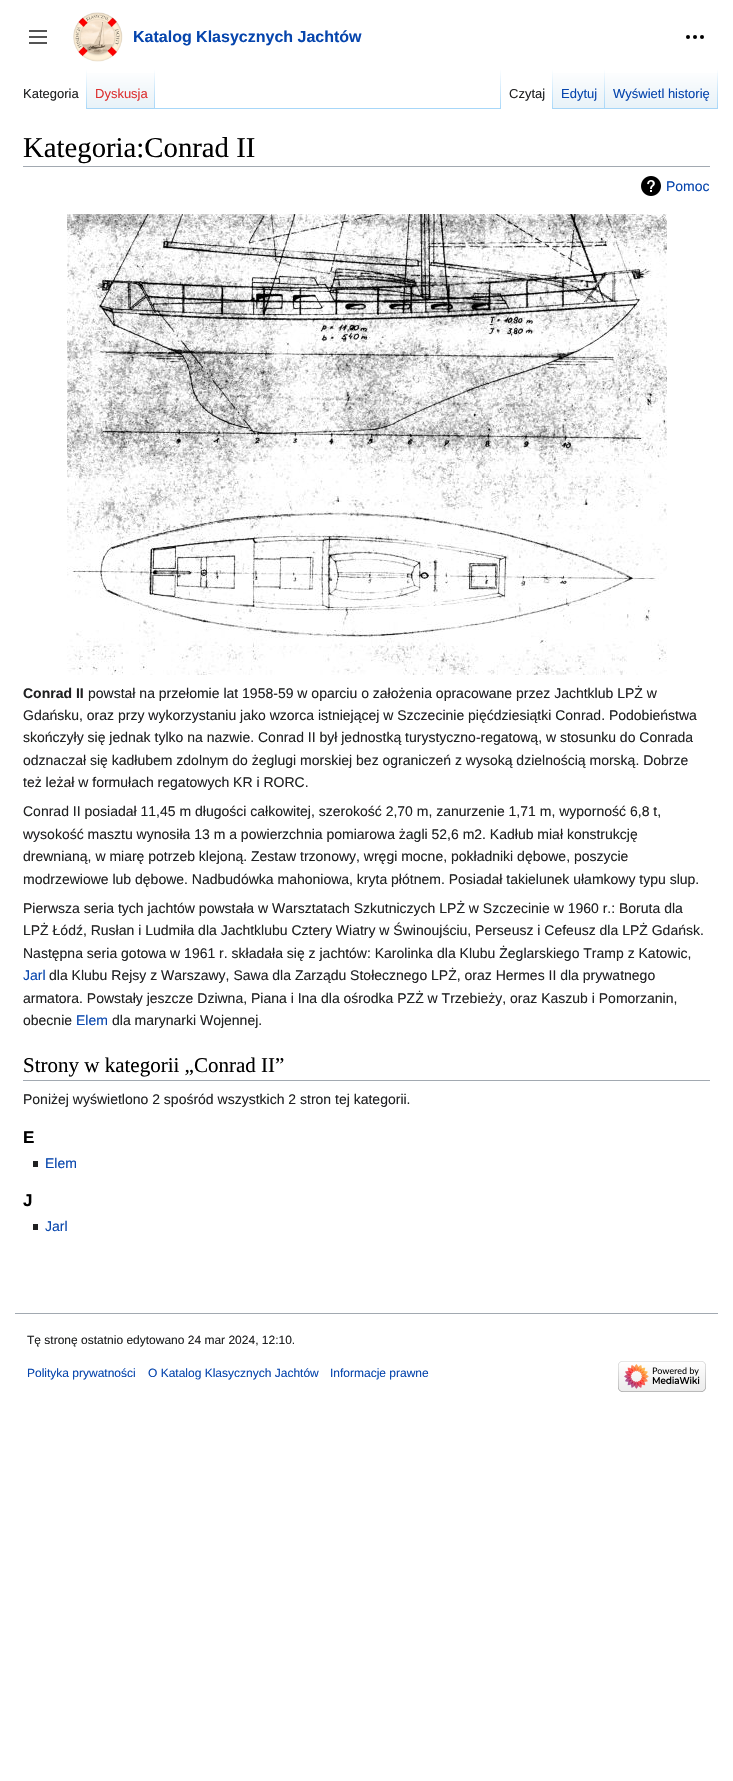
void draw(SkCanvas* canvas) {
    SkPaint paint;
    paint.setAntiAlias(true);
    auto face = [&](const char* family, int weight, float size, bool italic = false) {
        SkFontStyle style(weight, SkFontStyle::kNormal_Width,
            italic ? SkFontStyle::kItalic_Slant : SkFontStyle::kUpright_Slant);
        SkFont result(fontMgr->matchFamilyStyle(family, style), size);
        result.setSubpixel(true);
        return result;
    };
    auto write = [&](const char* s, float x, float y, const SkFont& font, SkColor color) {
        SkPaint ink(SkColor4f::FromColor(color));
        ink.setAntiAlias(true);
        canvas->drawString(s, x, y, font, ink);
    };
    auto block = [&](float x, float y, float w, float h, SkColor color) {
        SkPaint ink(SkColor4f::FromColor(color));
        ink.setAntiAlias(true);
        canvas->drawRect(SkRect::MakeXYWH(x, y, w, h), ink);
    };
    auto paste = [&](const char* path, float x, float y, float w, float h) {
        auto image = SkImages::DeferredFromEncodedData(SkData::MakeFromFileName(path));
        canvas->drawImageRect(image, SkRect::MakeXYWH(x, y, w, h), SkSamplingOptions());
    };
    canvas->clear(SK_ColorWHITE);
    paste("pic1.png", 29, 30, 18, 14);
    paste("pic2.png", 73, 12, 50, 50);
    auto kFont1 = face("Liberation Sans", 700, 16);
    write("Katalog Klasycznych Jachtów", 133, 42, kFont1, SkColorSetRGB(6, 69, 173));
    paste("pic3.png", 686, 35, 18, 4);
    {
        const SkColor colors[] = {SK_ColorWHITE, SkColorSetRGB(167, 215, 249)};
        const float stops[] = {0, 1};
        const SkPoint ends[] = {{87, 69}, {87, 109}};
        paint.setShader(SkGradientShader::MakeLinear(ends, colors, stops, 2, SkTileMode::kClamp));
        paint.setAlpha(255);
    }
    canvas->drawRect(SkRect::MakeXYWH(86, 69, 1, 40), paint);
    auto kFont2 = face("Liberation Sans", 400, 13);
    write("Kategoria", 23, 98, kFont2, SkColorSetRGB(32, 33, 34));
    {
        const SkColor colors[] = {SkColorSetRGB(119, 193, 246), SkColorSetRGB(232, 242, 248), SK_ColorWHITE};
        const float stops[] = {0, 0.03f, 1};
        const SkPoint ends[] = {{121, 109}, {121, 69}};
        paint.setShader(SkGradientShader::MakeLinear(ends, colors, stops, 3, SkTileMode::kClamp));
        paint.setAlpha(255);
    }
    canvas->drawRect(SkRect::MakeXYWH(87, 73, 68, 36), paint);
    {
        const SkColor colors[] = {SkColorSetARGB(0, 167, 215, 249), SkColorSetRGB(167, 215, 249)};
        const float stops[] = {0, 1};
        const SkPoint ends[] = {{155, 69}, {155, 109}};
        paint.setShader(SkGradientShader::MakeLinear(ends, colors, stops, 2, SkTileMode::kClamp));
        paint.setAlpha(255);
    }
    canvas->drawRect(SkRect::MakeXYWH(154, 69, 1, 40), paint);
    write("Dyskusja", 95, 98, kFont2, SkColorSetRGB(221, 51, 51));
    block(155, 108, 346, 1, SkColorSetRGB(167, 215, 249));
    {
        const SkColor colors[] = {SkColorSetARGB(0, 167, 215, 249), SkColorSetRGB(167, 215, 249)};
        const float stops[] = {0, 1};
        const SkPoint ends[] = {{501, 69}, {501, 109}};
        paint.setShader(SkGradientShader::MakeLinear(ends, colors, stops, 2, SkTileMode::kClamp));
        paint.setAlpha(255);
    }
    canvas->drawRect(SkRect::MakeXYWH(500, 69, 1, 40), paint);
    {
        const SkColor colors[] = {SK_ColorWHITE, SkColorSetRGB(167, 215, 249)};
        const float stops[] = {0, 1};
        const SkPoint ends[] = {{553, 69}, {553, 109}};
        paint.setShader(SkGradientShader::MakeLinear(ends, colors, stops, 2, SkTileMode::kClamp));
        paint.setAlpha(255);
    }
    canvas->drawRect(SkRect::MakeXYWH(552, 69, 1, 40), paint);
    write("Czytaj", 509, 98, kFont2, SkColorSetRGB(32, 33, 34));
    {
        const SkColor colors[] = {SkColorSetRGB(119, 193, 246), SkColorSetRGB(232, 242, 248), SK_ColorWHITE};
        const float stops[] = {0, 0.03f, 1};
        const SkPoint ends[] = {{579, 109}, {579, 69}};
        paint.setShader(SkGradientShader::MakeLinear(ends, colors, stops, 3, SkTileMode::kClamp));
        paint.setAlpha(255);
    }
    canvas->drawRect(SkRect::MakeXYWH(553, 73, 52, 36), paint);
    {
        const SkColor colors[] = {SkColorSetARGB(0, 167, 215, 249), SkColorSetRGB(167, 215, 249)};
        const float stops[] = {0, 1};
        const SkPoint ends[] = {{605, 69}, {605, 109}};
        paint.setShader(SkGradientShader::MakeLinear(ends, colors, stops, 2, SkTileMode::kClamp));
        paint.setAlpha(255);
    }
    canvas->drawRect(SkRect::MakeXYWH(604, 69, 1, 40), paint);
    write("Edytuj", 561, 98, kFont2, SkColorSetRGB(6, 69, 173));
    {
        const SkColor colors[] = {SkColorSetRGB(119, 193, 246), SkColorSetRGB(232, 242, 248), SK_ColorWHITE};
        const float stops[] = {0, 0.03f, 1};
        const SkPoint ends[] = {{662, 109}, {662, 69}};
        paint.setShader(SkGradientShader::MakeLinear(ends, colors, stops, 3, SkTileMode::kClamp));
        paint.setAlpha(255);
    }
    canvas->drawRect(SkRect::MakeXYWH(605, 73, 113, 36), paint);
    {
        const SkColor colors[] = {SkColorSetARGB(0, 167, 215, 249), SkColorSetRGB(167, 215, 249)};
        const float stops[] = {0, 1};
        const SkPoint ends[] = {{718, 69}, {718, 109}};
        paint.setShader(SkGradientShader::MakeLinear(ends, colors, stops, 2, SkTileMode::kClamp));
        paint.setAlpha(255);
    }
    canvas->drawRect(SkRect::MakeXYWH(717, 69, 1, 40), paint);
    write("Wyświetl historię", 613, 98, kFont2, SkColorSetRGB(6, 69, 173));
    block(23, 166, 687, 1, SkColorSetRGB(162, 169, 177));
    auto kFont3 = face("Liberation Serif", 400, 28.75f);
    write("Kategoria:Conrad II", 23, 157, kFont3, SK_ColorBLACK);
    paste("pic4.png", 641, 176, 20, 20);
    auto kFont4 = face("Liberation Sans", 400, 14);
    write("Pomoc", 666, 191, kFont4, SkColorSetRGB(6, 69, 173));
    paste("pic5.png", 67, 214, 600, 461);
    auto kFont5 = face("Liberation Sans", 700, 14);
    write("Conrad II", 23, 698, kFont5, SkColorSetRGB(32, 33, 34));
    write("powstał na przełomie lat 1958-59 w oparciu o założenia opracowane przez Jachtklub LPŻ w", 88, 698, kFont4, SkColorSetRGB(32, 33, 34));
    write("Gdańsku, oraz przy wykorzystaniu jako wzorca istniejącej w Szczecinie pięćdziesiątki Conrad. Podobieństwa", 23, 720, kFont4, SkColorSetRGB(32, 33, 34));
    write("skończyły się jednak tylko na nazwie. Conrad II był jednostką turystyczno-regatową, w stosunku do Conrada", 23, 742, kFont4, SkColorSetRGB(32, 33, 34));
    write("odznaczał się kadłubem zdolnym do żeglugi morskiej bez ograniczeń z wysoką dzielnością morską. Dobrze", 23, 765, kFont4, SkColorSetRGB(32, 33, 34));
    write("też leżał w formułach regatowych KR i RORC.", 23, 787, kFont4, SkColorSetRGB(32, 33, 34));
    write("Conrad II posiadał 11,45 m długości całkowitej, szerokość 2,70 m, zanurzenie 1,71 m, wyporność 6,8 t,", 23, 816, kFont4, SkColorSetRGB(32, 33, 34));
    write("wysokość masztu wynosiła 13 m a powierzchnia pomiarowa żagli 52,6 m2. Kadłub miał konstrukcję", 23, 839, kFont4, SkColorSetRGB(32, 33, 34));
    write("drewnianą, w miarę potrzeb klejoną. Zestaw trzonowy, wręgi mocne, pokładniki dębowe, poszycie", 23, 861, kFont4, SkColorSetRGB(32, 33, 34));
    write("modrzewiowe lub dębowe. Nadbudówka mahoniowa, kryta płótnem. Posiadał takielunek ułamkowy typu slup.", 23, 884, kFont4, SkColorSetRGB(32, 33, 34));
    write("Pierwsza seria tych jachtów powstała w Warsztatach Szkutniczych LPŻ w Szczecinie w 1960 r.: Boruta dla", 23, 913, kFont4, SkColorSetRGB(32, 33, 34));
    write("LPŻ Łódź, Rusłan i Ludmiła dla Jachtklubu Cztery Wiatry w Świnoujściu, Perseusz i Cefeusz dla LPŻ Gdańsk.", 23, 935, kFont4, SkColorSetRGB(32, 33, 34));
    write("Następna seria gotowa w 1961 r. składała się z jachtów: Karolinka dla Klubu Żeglarskiego Tramp z Katowic,", 23, 958, kFont4, SkColorSetRGB(32, 33, 34));
    write("Jarl", 23, 980, kFont4, SkColorSetRGB(6, 69, 173));
    write("dla Klubu Rejsy z Warszawy, Sawa dla Zarządu Stołecznego LPŻ, oraz Hermes II dla prywatnego", 49, 980, kFont4, SkColorSetRGB(32, 33, 34));
    write("armatora. Powstały jeszcze Dziwna, Piana i Ina dla ośrodka PZŻ w Trzebieży, oraz Kaszub i Pomorzanin,", 23, 1003, kFont4, SkColorSetRGB(32, 33, 34));
    write("obecnie", 23, 1025, kFont4, SkColorSetRGB(32, 33, 34));
    write("Elem", 76, 1025, kFont4, SkColorSetRGB(6, 69, 173));
    write("dla marynarki Wojennej.", 112, 1025, kFont4, SkColorSetRGB(32, 33, 34));
    block(23, 1080, 687, 1, SkColorSetRGB(162, 169, 177));
    auto kFont6 = face("Liberation Serif", 400, 21);
    write("Strony w kategorii „Conrad II”", 23, 1072, kFont6, SK_ColorBLACK);
    write("Poniżej wyświetlono 2 spośród wszystkich 2 stron tej kategorii.", 23, 1104, kFont4, SkColorSetRGB(32, 33, 34));
    auto kFont7 = face("Liberation Sans", 700, 17);
    write("E", 23, 1143, kFont7, SK_ColorBLACK);
    block(33, 1161, 5, 6, SkColorSetRGB(32, 33, 34));
    write("Elem", 45, 1168, kFont4, SkColorSetRGB(6, 69, 173));
    write("J", 23, 1206, kFont7, SK_ColorBLACK);
    block(33, 1224, 5, 6, SkColorSetRGB(32, 33, 34));
    write("Jarl", 45, 1231, kFont4, SkColorSetRGB(6, 69, 173));
    block(15, 1313, 703, 1, SkColorSetRGB(162, 169, 177));
    auto kFont8 = face("Liberation Sans", 400, 12);
    write("Tę stronę ostatnio edytowano 24 mar 2024, 12:10.", 27, 1344, kFont8, SkColorSetRGB(32, 33, 34));
    write("Polityka prywatności", 27, 1377, kFont8, SkColorSetRGB(6, 69, 173));
    write("O Katalog Klasycznych Jachtów", 148, 1377, kFont8, SkColorSetRGB(6, 69, 173));
    write("Informacje prawne", 330, 1377, kFont8, SkColorSetRGB(6, 69, 173));
    paste("pic6.png", 618, 1361, 88, 31);
}
